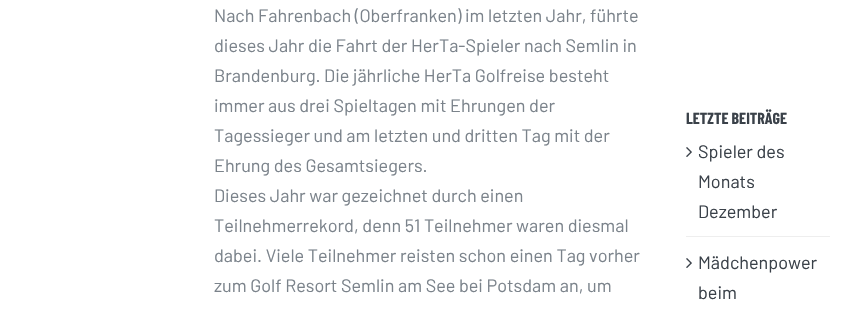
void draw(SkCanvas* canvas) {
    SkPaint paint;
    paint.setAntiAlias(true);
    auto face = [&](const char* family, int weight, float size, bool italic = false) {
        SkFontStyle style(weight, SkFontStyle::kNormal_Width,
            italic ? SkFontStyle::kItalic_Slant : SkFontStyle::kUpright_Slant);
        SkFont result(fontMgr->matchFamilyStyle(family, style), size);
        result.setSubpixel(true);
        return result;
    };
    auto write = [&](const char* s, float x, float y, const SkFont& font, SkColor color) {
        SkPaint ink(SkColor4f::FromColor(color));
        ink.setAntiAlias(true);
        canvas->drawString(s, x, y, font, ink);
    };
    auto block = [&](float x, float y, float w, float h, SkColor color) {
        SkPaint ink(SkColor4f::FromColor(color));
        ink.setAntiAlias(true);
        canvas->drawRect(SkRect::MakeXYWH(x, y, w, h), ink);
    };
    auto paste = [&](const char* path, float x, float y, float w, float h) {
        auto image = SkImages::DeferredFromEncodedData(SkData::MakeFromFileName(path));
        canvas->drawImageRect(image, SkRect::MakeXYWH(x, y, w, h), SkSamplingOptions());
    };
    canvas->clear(SK_ColorWHITE);
    auto kFont1 = face("Barlow", 400, 18);
    write("Nach Fahrenbach (Oberfranken) im letzten Jahr, führte", 214, 22, kFont1, SkColorSetRGB(123, 131, 139));
    write("dieses Jahr die Fahrt der HerTa-Spieler nach Semlin in", 214, 52, kFont1, SkColorSetRGB(123, 131, 139));
    write("Brandenburg. Die jährliche HerTa Golfreise besteht", 214, 82, kFont1, SkColorSetRGB(123, 131, 139));
    write("immer aus drei Spieltagen mit Ehrungen der", 214, 112, kFont1, SkColorSetRGB(123, 131, 139));
    write("Tagessieger und am letzten und dritten Tag mit der", 214, 142, kFont1, SkColorSetRGB(123, 131, 139));
    write("Ehrung des Gesamtsiegers.", 214, 172, kFont1, SkColorSetRGB(123, 131, 139));
    write("Dieses Jahr war gezeichnet durch einen", 214, 202, kFont1, SkColorSetRGB(123, 131, 139));
    write("Teilnehmerrekord, denn 51 Teilnehmer waren diesmal", 214, 232, kFont1, SkColorSetRGB(123, 131, 139));
    write("dabei. Viele Teilnehmer reisten schon einen Tag vorher", 214, 262, kFont1, SkColorSetRGB(123, 131, 139));
    write("zum Golf Resort Semlin am See bei Potsdam an, um", 214, 292, kFont1, SkColorSetRGB(123, 131, 139));
    auto kFont2 = face("Barlow Condensed", 700, 16);
    write("LETZTE BEITRÄGE", 686, 124, kFont2, SkColorSetRGB(58, 65, 73));
    block(686, 236, 144, 1, SkColorSetRGB(238, 238, 238));
    paste("pic1.png", 686, 147, 6, 10);
    write("Spieler des", 698, 158, kFont1, SkColorSetRGB(58, 65, 73));
    write("Monats", 698, 188, kFont1, SkColorSetRGB(58, 65, 73));
    write("Dezember", 698, 218, kFont1, SkColorSetRGB(58, 65, 73));
    paste("pic1.png", 686, 258, 6, 10);
    write("Mädchenpower", 698, 269, kFont1, SkColorSetRGB(58, 65, 73));
    write("beim", 698, 299, kFont1, SkColorSetRGB(58, 65, 73));
}
